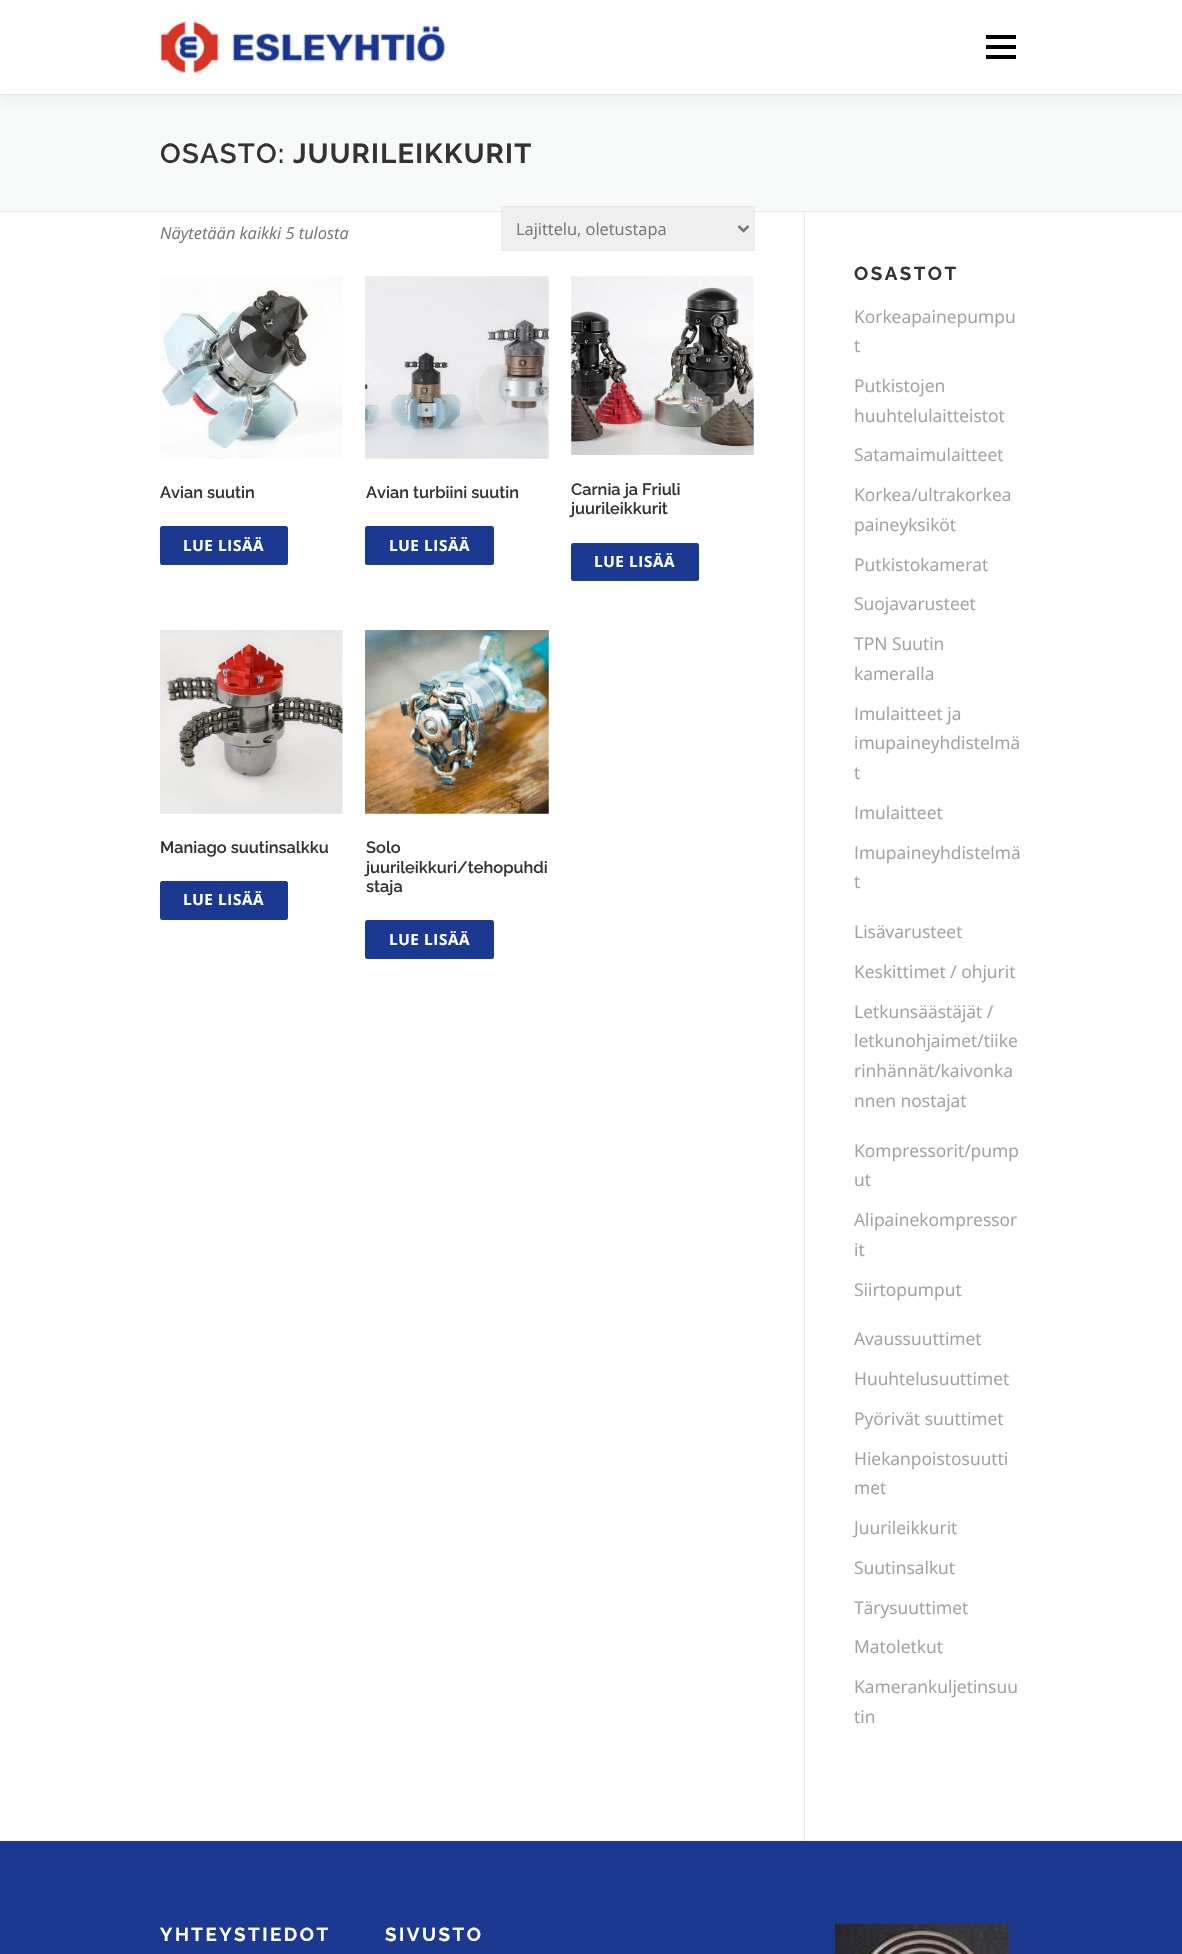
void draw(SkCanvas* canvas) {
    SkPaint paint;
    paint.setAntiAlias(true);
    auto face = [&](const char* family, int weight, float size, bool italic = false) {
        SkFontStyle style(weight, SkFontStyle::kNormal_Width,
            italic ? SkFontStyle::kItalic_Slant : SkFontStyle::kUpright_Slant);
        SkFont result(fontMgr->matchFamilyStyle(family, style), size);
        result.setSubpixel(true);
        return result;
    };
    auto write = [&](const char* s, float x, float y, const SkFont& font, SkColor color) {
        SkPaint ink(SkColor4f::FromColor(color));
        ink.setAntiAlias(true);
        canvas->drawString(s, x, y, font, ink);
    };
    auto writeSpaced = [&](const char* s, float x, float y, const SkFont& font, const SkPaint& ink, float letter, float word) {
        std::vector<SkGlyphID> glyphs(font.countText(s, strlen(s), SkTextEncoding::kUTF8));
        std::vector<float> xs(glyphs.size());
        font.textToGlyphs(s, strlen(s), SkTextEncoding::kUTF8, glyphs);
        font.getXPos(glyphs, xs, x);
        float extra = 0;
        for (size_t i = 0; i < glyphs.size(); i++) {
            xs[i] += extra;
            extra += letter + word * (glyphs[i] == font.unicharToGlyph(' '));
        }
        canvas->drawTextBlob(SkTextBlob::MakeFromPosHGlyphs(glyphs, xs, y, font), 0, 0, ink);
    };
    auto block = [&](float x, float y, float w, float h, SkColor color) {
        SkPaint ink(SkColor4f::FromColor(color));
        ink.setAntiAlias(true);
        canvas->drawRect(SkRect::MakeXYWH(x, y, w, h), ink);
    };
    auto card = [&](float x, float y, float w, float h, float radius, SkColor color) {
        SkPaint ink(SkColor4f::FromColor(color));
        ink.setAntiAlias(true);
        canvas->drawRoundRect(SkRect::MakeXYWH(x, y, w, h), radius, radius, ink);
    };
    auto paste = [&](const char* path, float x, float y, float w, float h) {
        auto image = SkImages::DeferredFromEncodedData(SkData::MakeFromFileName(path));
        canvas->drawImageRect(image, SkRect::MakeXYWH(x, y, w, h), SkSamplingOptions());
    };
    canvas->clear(SK_ColorWHITE);
    block(0, 95, 1182, 118, SkColorSetRGB(248, 249, 249));
    block(0, 94, 1182, 1, SkColorSetRGB(233, 233, 233));
    paint.setColor(SkColorSetARGB(15, 50, 50, 50));
    paint.setMaskFilter(SkMaskFilter::MakeBlur(kNormal_SkBlurStyle, 6));
    canvas->drawRect(SkRect::MakeXYWH(0, 6, 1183, 94), paint);
    paint.setMaskFilter(nullptr);
    block(0, 1, 1182, 93, SK_ColorWHITE);
    paste("pic1.png", 160, 21, 285, 52);
    block(986, 45, 30, 4, SK_ColorBLACK);
    block(986, 35, 30, 4, SK_ColorBLACK);
    block(986, 55, 30, 4, SK_ColorBLACK);
    block(0, 211, 1182, 1, SkColorSetRGB(233, 233, 233));
    auto kFont1 = face("Raleway", 600, 27.5f);
    paint.setColor(SkColorSetRGB(51, 51, 51));
    writeSpaced("OSASTO:", 160, 163, kFont1, paint, 1.25f, 0);
    auto kFont2 = face("Raleway", 700, 27.5f);
    writeSpaced("JUURILEIKKURIT", 293, 163, kFont2, paint, 1.25f, 0);
    auto kFont3 = face("Open Sans", 400, 16.4f, true);
    write("Näytetään kaikki 5 tulosta", 160, 239, kFont3, SkColorSetRGB(119, 119, 119));
    paint.setColor(SkColorSetRGB(239, 239, 239));
    canvas->drawRect(SkRect::MakeXYWH(501.5f, 206.5f, 253, 44), paint);
    paint.setStyle(SkPaint::kStroke_Style);
    paint.setStrokeWidth(1);
    paint.setColor(SkColorSetRGB(233, 233, 233));
    canvas->drawRect(SkRect::MakeXYWH(501.5f, 206.5f, 253, 44), paint);
    paint.setStrokeWidth(2.5f);
    paint.setColor(SkColorSetRGB(119, 119, 119));
    canvas->drawPath(SkPathBuilder().moveTo(738.5f, 226).lineTo(743.5f, 231).lineTo(748.5f, 226).detach(), paint);
    auto kFont4 = face("Open Sans", 400, 16.4f);
    write("Lajittelu, oletustapa", 516, 235, kFont4, SkColorSetRGB(119, 119, 119));
    paste("pic2.png", 160, 276, 183, 183);
    auto kFont5 = face("Raleway", 600, 16.4f);
    write("Avian suutin", 160, 498, kFont5, SkColorSetRGB(51, 51, 51));
    card(160, 526, 128, 39, 2.5f, SkColorSetRGB(27, 57, 145));
    auto kFont6 = face("Open Sans", 700, 15.25f);
    paint.setStyle(SkPaint::kFill_Style);
    paint.setColor(SK_ColorWHITE);
    writeSpaced("LUE LISÄÄ", 183, 551, kFont6, paint, 0.6f, 0);
    paste("pic3.png", 365, 276, 184, 183);
    write("Avian turbiini suutin", 366, 498, kFont5, SkColorSetRGB(51, 51, 51));
    card(365, 526, 129, 39, 2.5f, SkColorSetRGB(27, 57, 145));
    writeSpaced("LUE LISÄÄ", 389, 551, kFont6, paint, 0.6f, 0);
    paste("pic4.png", 571, 276, 183, 179);
    write("Carnia ja Friuli", 571, 495, kFont5, SkColorSetRGB(51, 51, 51));
    write("juurileikkurit", 571, 514, kFont5, SkColorSetRGB(51, 51, 51));
    card(571, 543, 128, 38, 2.5f, SkColorSetRGB(27, 57, 145));
    writeSpaced("LUE LISÄÄ", 594, 567, kFont6, paint, 0.6f, 0);
    paste("pic5.png", 160, 630, 183, 184);
    write("Maniago suutinsalkku", 160, 853, kFont5, SkColorSetRGB(51, 51, 51));
    card(160, 881, 128, 39, 2.5f, SkColorSetRGB(27, 57, 145));
    writeSpaced("LUE LISÄÄ", 183, 905, kFont6, paint, 0.6f, 0);
    paste("pic6.png", 365, 630, 184, 184);
    write("Solo", 366, 853, kFont5, SkColorSetRGB(51, 51, 51));
    write("juurileikkuri/tehopuhdi", 366, 873, kFont5, SkColorSetRGB(51, 51, 51));
    write("staja", 366, 892, kFont5, SkColorSetRGB(51, 51, 51));
    card(365, 920, 129, 39, 2.5f, SkColorSetRGB(27, 57, 145));
    writeSpaced("LUE LISÄÄ", 389, 945, kFont6, paint, 0.6f, 0);
    block(804, 213, 1, 1628, SkColorSetRGB(233, 233, 233));
    auto kFont7 = face("Raleway", 700, 18.75f);
    paint.setColor(SkColorSetRGB(51, 51, 51));
    writeSpaced("OSASTOT", 854, 280, kFont7, paint, 2.5f, 0);
    auto kFont8 = face("Open Sans", 400, 17.5f);
    write("Korkeapainepumpu", 854, 323, kFont8, SkColorSetRGB(161, 161, 161));
    write("t", 854, 352, kFont8, SkColorSetRGB(161, 161, 161));
    write("Putkistojen", 854, 392, kFont8, SkColorSetRGB(161, 161, 161));
    write("huuhtelulaitteistot", 854, 422, kFont8, SkColorSetRGB(161, 161, 161));
    write("Satamaimulaitteet", 854, 461, kFont8, SkColorSetRGB(161, 161, 161));
    write("Korkea/ultrakorkea", 854, 501, kFont8, SkColorSetRGB(161, 161, 161));
    write("paineyksiköt", 854, 531, kFont8, SkColorSetRGB(161, 161, 161));
    write("Putkistokamerat", 854, 571, kFont8, SkColorSetRGB(161, 161, 161));
    write("Suojavarusteet", 854, 610, kFont8, SkColorSetRGB(161, 161, 161));
    write("TPN Suutin", 854, 650, kFont8, SkColorSetRGB(161, 161, 161));
    write("kameralla", 854, 680, kFont8, SkColorSetRGB(161, 161, 161));
    write("Imulaitteet ja", 854, 720, kFont8, SkColorSetRGB(161, 161, 161));
    write("imupaineyhdistelmä", 854, 749, kFont8, SkColorSetRGB(161, 161, 161));
    write("t", 854, 779, kFont8, SkColorSetRGB(161, 161, 161));
    write("Imulaitteet", 854, 819, kFont8, SkColorSetRGB(161, 161, 161));
    write("Imupaineyhdistelmä", 854, 859, kFont8, SkColorSetRGB(161, 161, 161));
    write("t", 854, 888, kFont8, SkColorSetRGB(161, 161, 161));
    write("Lisävarusteet", 854, 938, kFont8, SkColorSetRGB(161, 161, 161));
    write("Keskittimet / ohjurit", 854, 978, kFont8, SkColorSetRGB(161, 161, 161));
    write("Letkunsäästäjät /", 854, 1018, kFont8, SkColorSetRGB(161, 161, 161));
    write("letkunohjaimet/tiike", 854, 1047, kFont8, SkColorSetRGB(161, 161, 161));
    write("rinhännät/kaivonka", 854, 1077, kFont8, SkColorSetRGB(161, 161, 161));
    write("nnen nostajat", 854, 1107, kFont8, SkColorSetRGB(161, 161, 161));
    write("Kompressorit/pump", 854, 1157, kFont8, SkColorSetRGB(161, 161, 161));
    write("ut", 854, 1186, kFont8, SkColorSetRGB(161, 161, 161));
    write("Alipainekompressor", 854, 1226, kFont8, SkColorSetRGB(161, 161, 161));
    write("it", 854, 1256, kFont8, SkColorSetRGB(161, 161, 161));
    write("Siirtopumput", 854, 1296, kFont8, SkColorSetRGB(161, 161, 161));
    write("Avaussuuttimet", 854, 1345, kFont8, SkColorSetRGB(161, 161, 161));
    write("Huuhtelusuuttimet", 854, 1385, kFont8, SkColorSetRGB(161, 161, 161));
    write("Pyörivät suuttimet", 854, 1425, kFont8, SkColorSetRGB(161, 161, 161));
    write("Hiekanpoistosuutti", 854, 1465, kFont8, SkColorSetRGB(161, 161, 161));
    write("met", 854, 1494, kFont8, SkColorSetRGB(161, 161, 161));
    write("Juurileikkurit", 854, 1534, kFont8, SkColorSetRGB(161, 161, 161));
    write("Suutinsalkut", 854, 1574, kFont8, SkColorSetRGB(161, 161, 161));
    write("Tärysuuttimet", 854, 1614, kFont8, SkColorSetRGB(161, 161, 161));
    write("Matoletkut", 854, 1653, kFont8, SkColorSetRGB(161, 161, 161));
    write("Kamerankuljetinsuu", 854, 1693, kFont8, SkColorSetRGB(161, 161, 161));
    write("tin", 854, 1723, kFont8, SkColorSetRGB(161, 161, 161));
    block(0, 1841, 1182, 113, SkColorSetRGB(27, 57, 145));
    paint.setColor(SK_ColorWHITE);
    writeSpaced("YHTEYSTIEDOT", 160, 1941, kFont7, paint, 2.5f, 0);
    writeSpaced("SIVUSTO", 385, 1941, kFont7, paint, 2.5f, 0);
    paste("pic7.png", 835, 1923, 174, 31);
}
